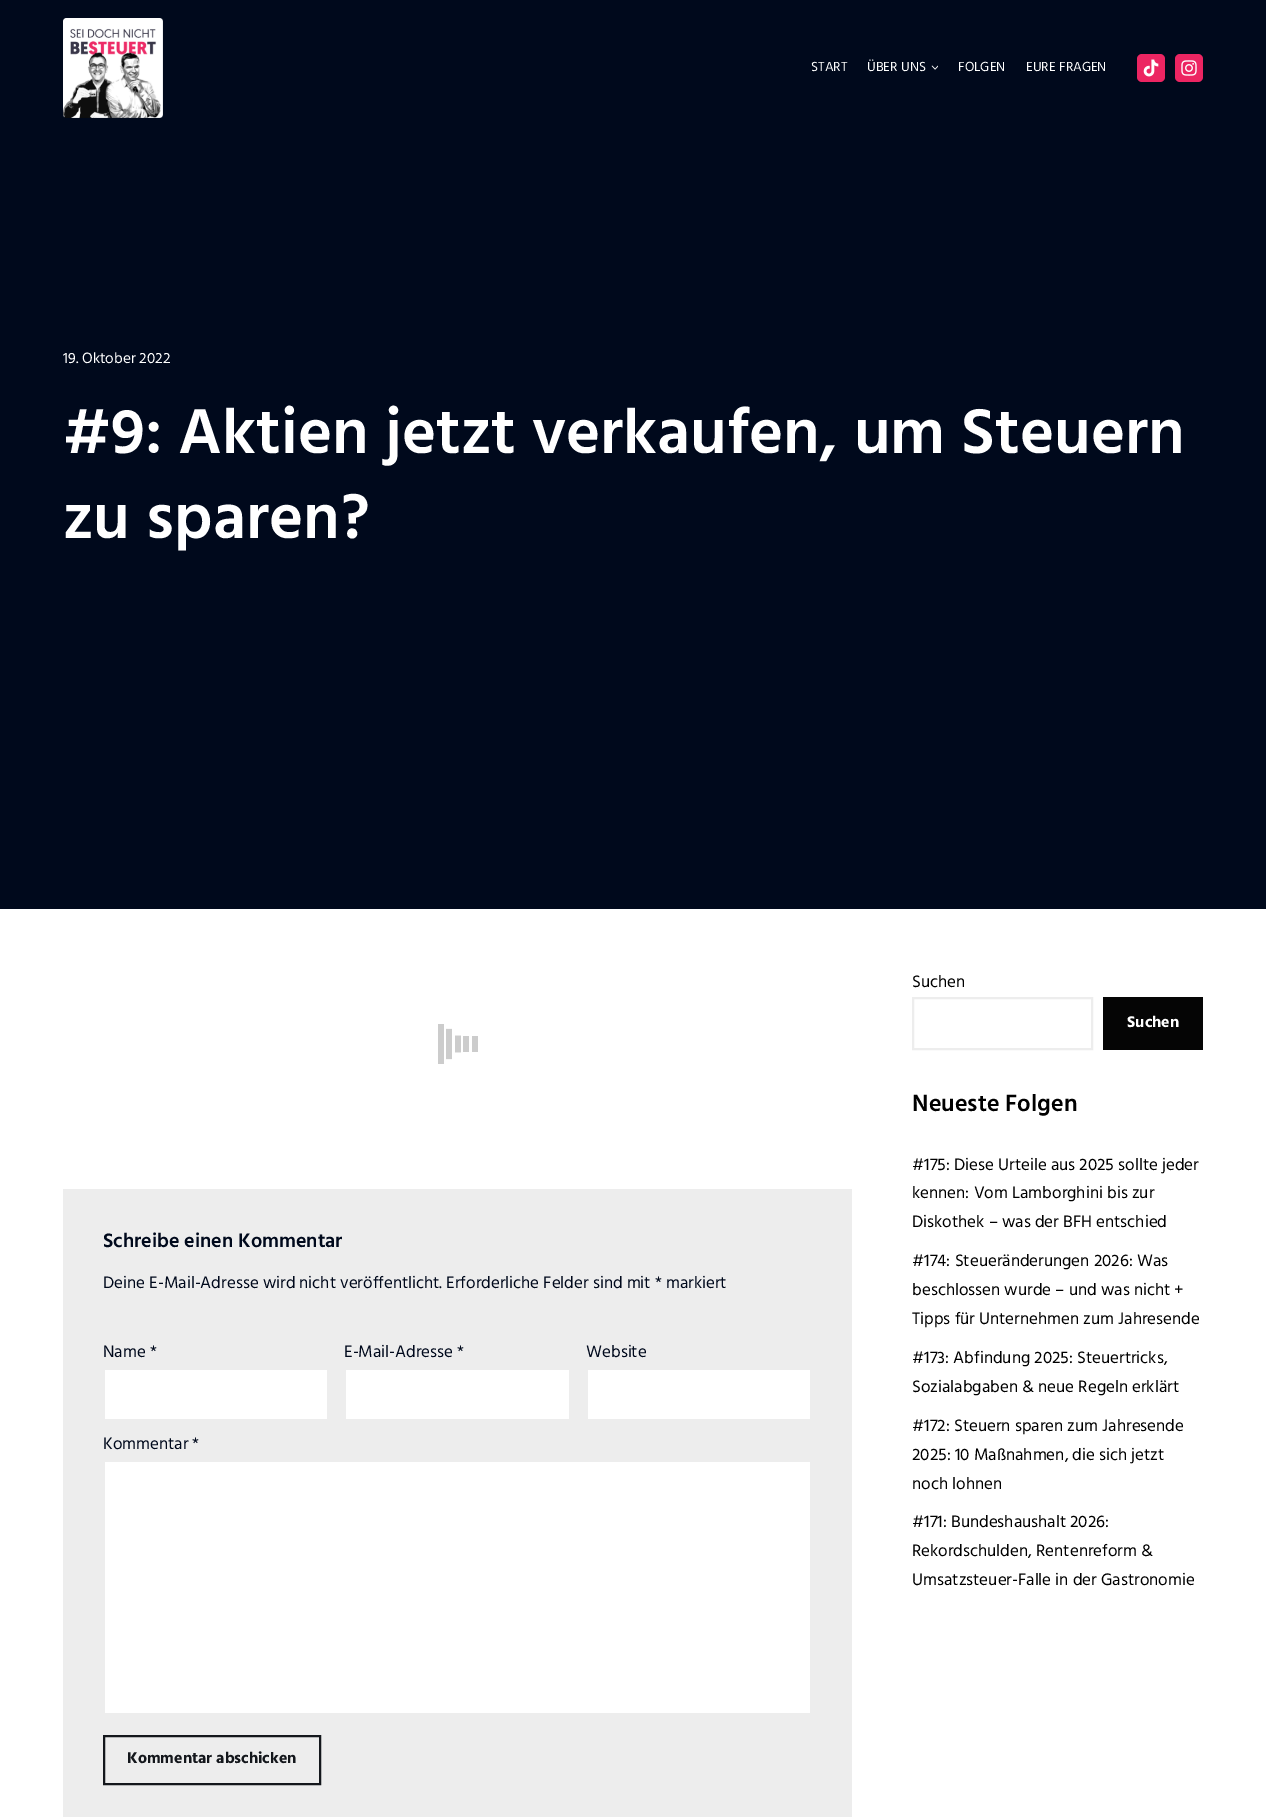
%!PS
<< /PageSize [1266 1817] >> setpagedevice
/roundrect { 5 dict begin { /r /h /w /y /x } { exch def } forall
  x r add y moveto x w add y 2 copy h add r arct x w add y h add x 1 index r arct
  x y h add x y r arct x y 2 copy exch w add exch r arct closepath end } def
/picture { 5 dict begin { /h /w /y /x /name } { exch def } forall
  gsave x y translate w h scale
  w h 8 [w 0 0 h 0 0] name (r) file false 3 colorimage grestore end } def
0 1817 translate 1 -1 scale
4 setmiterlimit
1 setgray
0 0 1266 1817 rectfill
0 0.035 0.11 setrgbcolor
0 0 1266 909 rectfill
(img1.rgb) 63 18 100 100 picture
/Hind-Regular [13.5 0 0 -13.5 0 0] selectfont
1 setgray
811 71 moveto (START) show
867 71 moveto (ÜBER UNS) show
(img2.rgb) 931 65 7 5 picture
958 71 moveto (FOLGEN) show
1026 71 moveto (EURE FRAGEN) show
0.925 0.145 0.384 setrgbcolor
1137 54 28 28 5 roundrect fill
(img3.rgb) 1143 59 16 18 picture
1175 54 28 28 5 roundrect fill
(img4.rgb) 1181 60 16 16 picture
/Hind-Regular [15.25 0 0 -15.25 0 0] selectfont
1 setgray
63 363 moveto (19. Oktober 2022) show
/Hind-SemiBold [65 0 0 -65 0 0] selectfont
63 453 moveto (#9: Aktien jetzt verkaufen, um Steuern) show
63 538 moveto (zu sparen?) show
(img5.rgb) 438 1024 40 40 picture
0.929 setgray
63 1189 789 628 rectfill
/Hind-SemiBold [20 0 0 -20 0 0] selectfont
0 0.035 0.11 setrgbcolor
103 1247 moveto (Schreibe einen Kommentar) show
/Hind-Regular [17 0 0 -17 0 0] selectfont
103 1288 moveto (Deine E-Mail-Adresse wird nicht veröffentlicht. Erforderliche Felder sind mit * markiert) show
103 1357 moveto (Name *) show
1 setgray
105 1370 222 49 rectfill
0 0.035 0.11 setrgbcolor
344 1357 moveto (E-Mail-Adresse *) show
1 setgray
346 1370 223 49 rectfill
0 0.035 0.11 setrgbcolor
586 1357 moveto (Website) show
1 setgray
588 1370 222 49 rectfill
0 0.035 0.11 setrgbcolor
103 1449 moveto (Kommentar *) show
1 setgray
105 1462 705 251 rectfill
0.078 0.09 0.11 setrgbcolor
2 setlinewidth
104 1736 216 48 rectstroke
/Hind-Bold [16 0 0 -16 0 0] selectfont
127 1763 moveto (Kommentar abschicken) show
/Hind-Regular [17 0 0 -17 0 0] selectfont
0 setgray
912 987 moveto (Suchen) show
0.929 setgray
913 998 179 51 rectstroke
0.02 setgray
1103 997 100 53 rectfill
/Hind-Bold [16 0 0 -16 0 0] selectfont
1 setgray
1127 1027 moveto (Suchen) show
/Hind-SemiBold [24 0 0 -24 0 0] selectfont
0 setgray
912 1111 moveto (Neueste Folgen) show
/Hind-Regular [17 0 0 -17 0 0] selectfont
912 1170 moveto (#175: Diese Urteile aus 2025 sollte jeder) show
912 1198 moveto (kennen: Vom Lamborghini bis zur) show
912 1227 moveto (Diskothek – was der BFH entschied) show
912 1266 moveto (#174: Steueränderungen 2026: Was) show
912 1295 moveto (beschlossen wurde – und was nicht +) show
912 1324 moveto (Tipps für Unternehmen zum Jahresende) show
912 1363 moveto (#173: Abfindung 2025: Steuertricks,) show
912 1392 moveto (Sozialabgaben & neue Regeln erklärt) show
912 1431 moveto (#172: Steuern sparen zum Jahresende) show
912 1460 moveto (2025: 10 Maßnahmen, die sich jetzt) show
912 1489 moveto (noch lohnen) show
912 1527 moveto (#171: Bundeshaushalt 2026:) show
912 1556 moveto (Rekordschulden, Rentenreform &) show
912 1585 moveto (Umsatzsteuer-Falle in der Gastronomie) show
showpage
